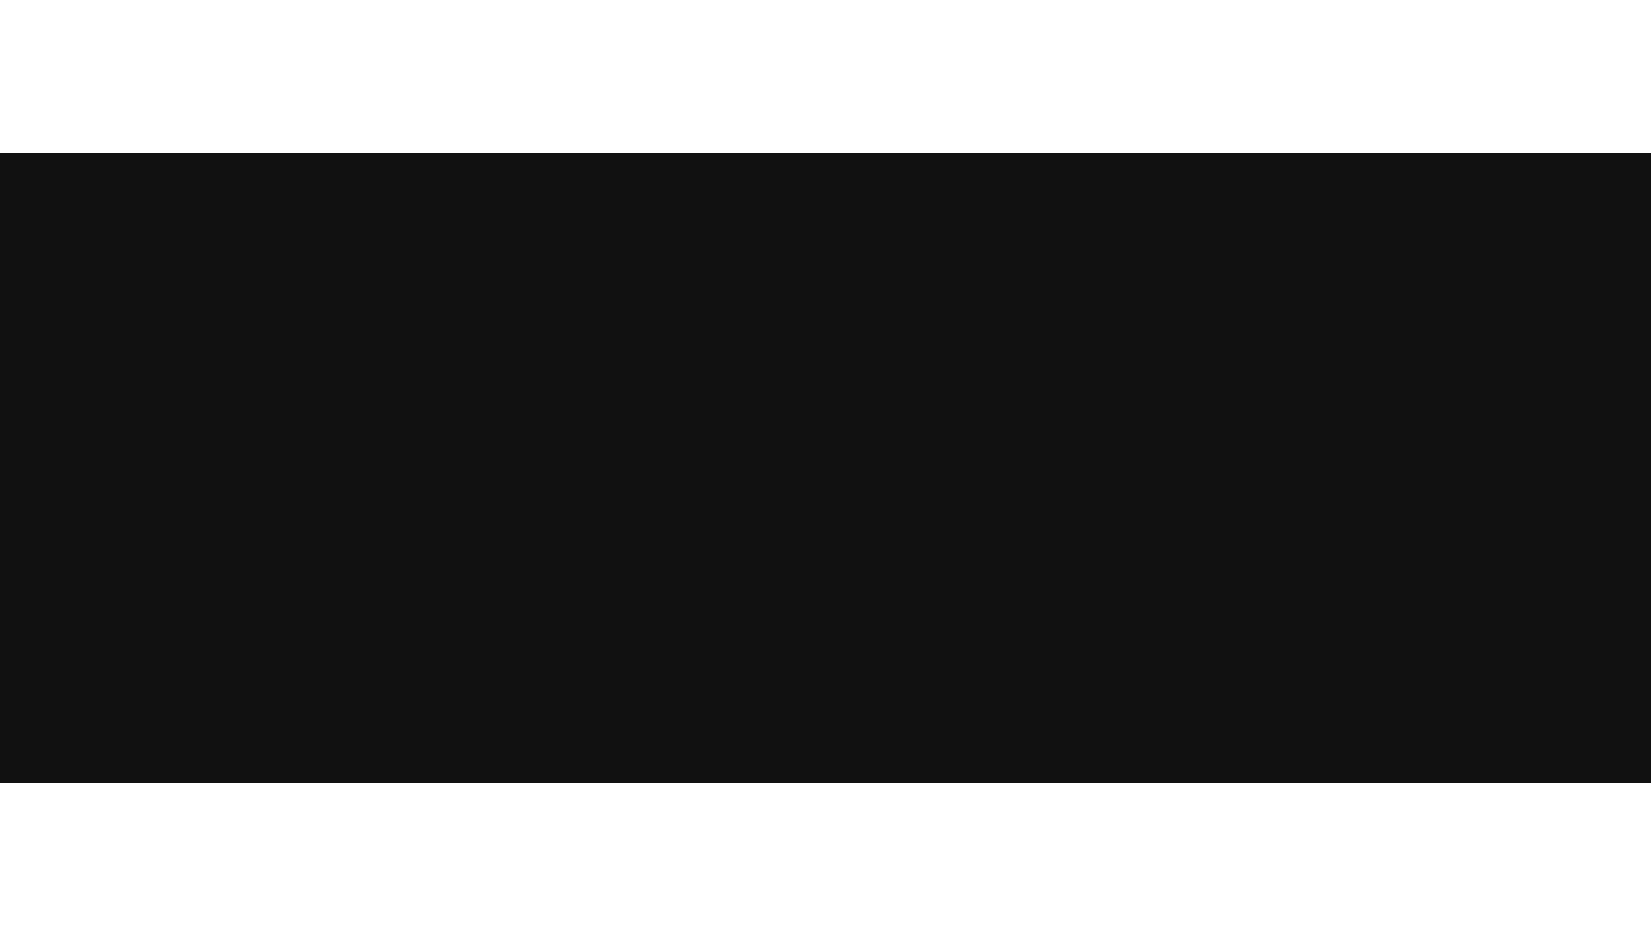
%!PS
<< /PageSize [1651 936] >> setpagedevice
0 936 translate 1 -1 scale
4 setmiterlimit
1 setgray
0 0 1651 936 rectfill
0.067 setgray
0 153 1651 630 rectfill
showpage
